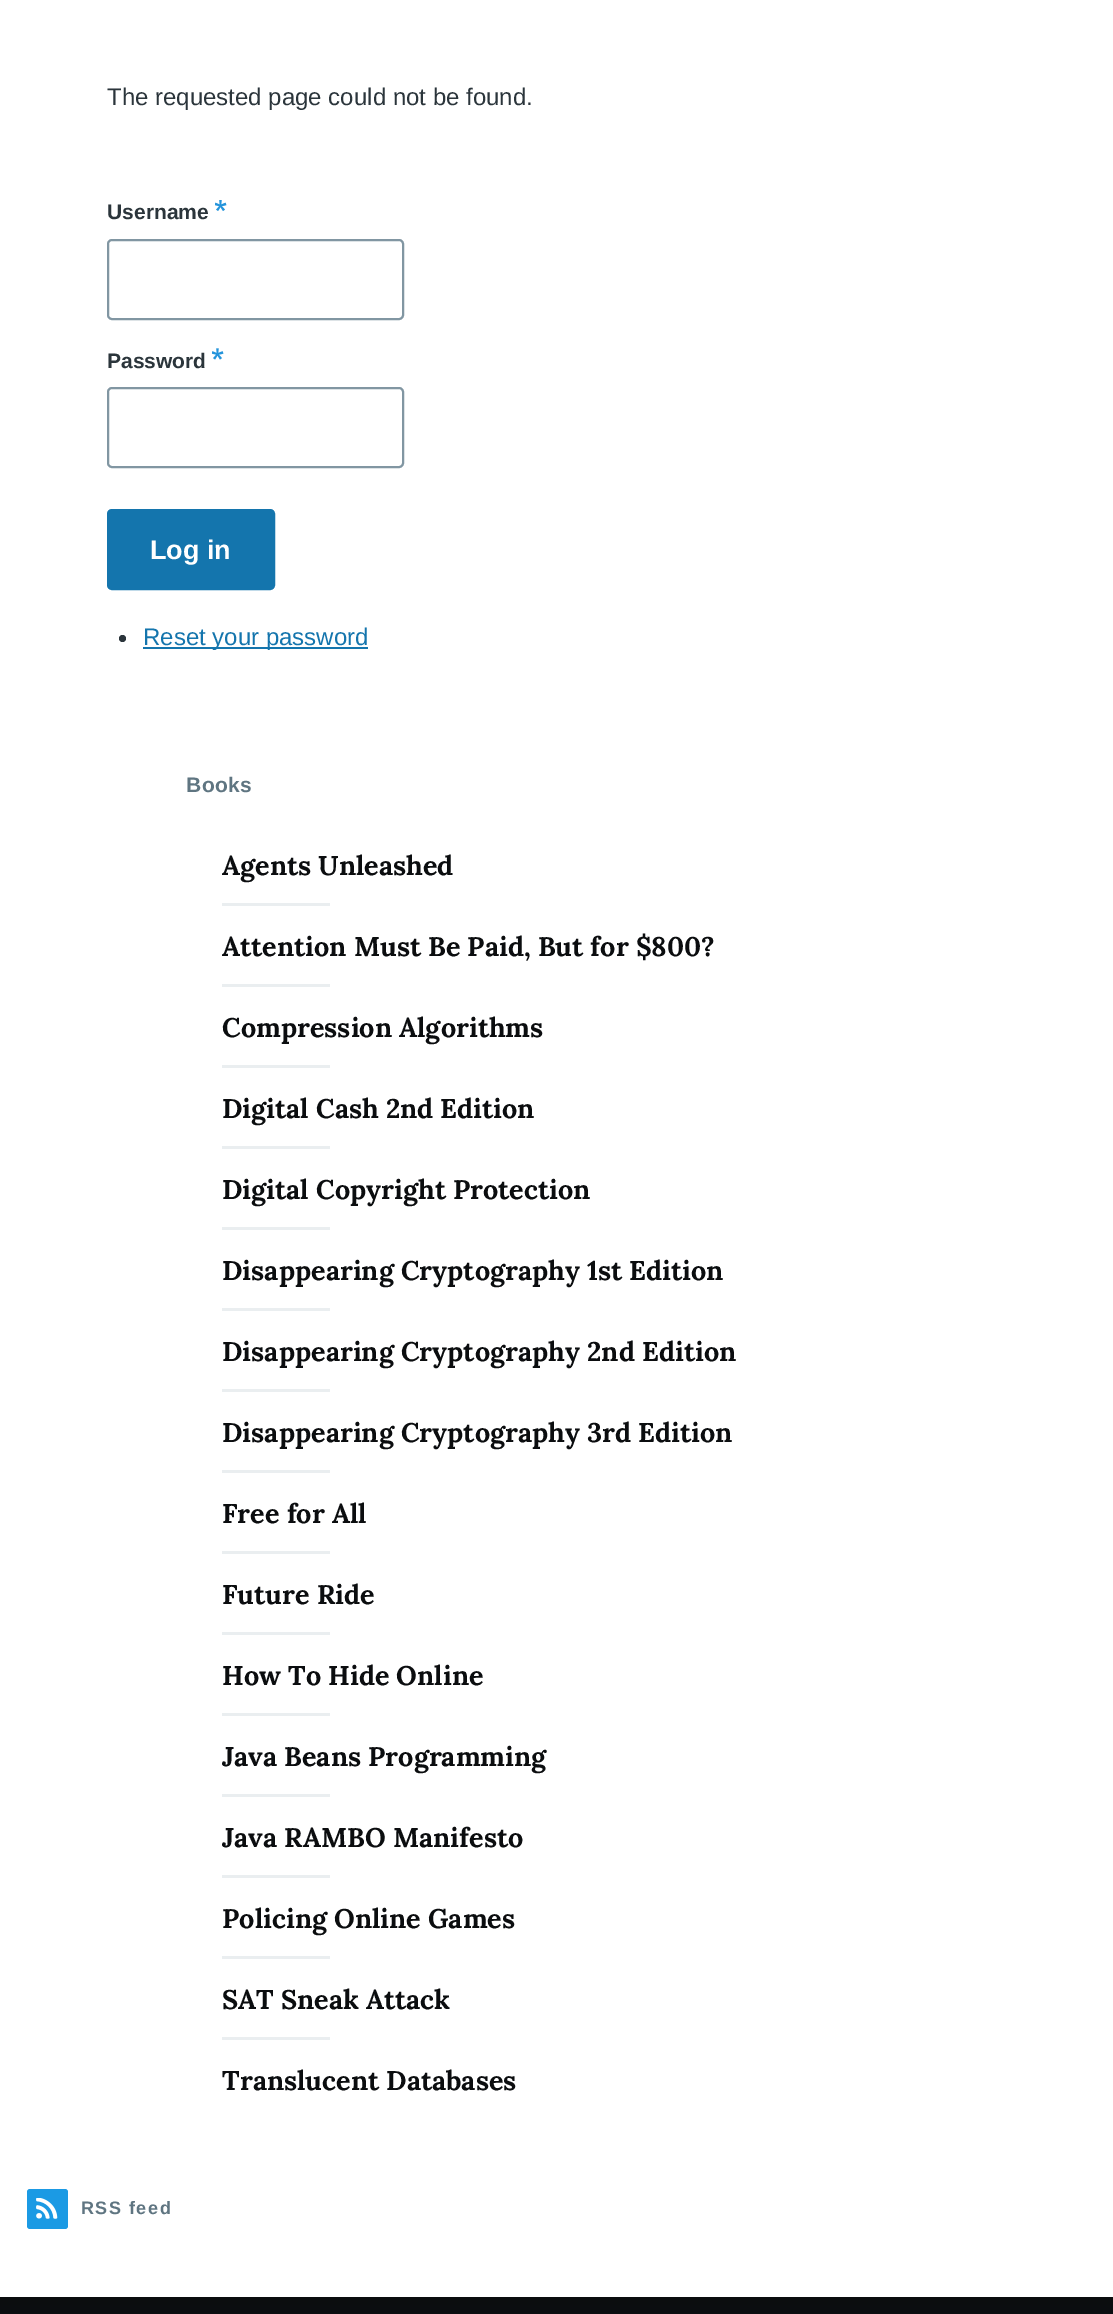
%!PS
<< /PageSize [1113 2314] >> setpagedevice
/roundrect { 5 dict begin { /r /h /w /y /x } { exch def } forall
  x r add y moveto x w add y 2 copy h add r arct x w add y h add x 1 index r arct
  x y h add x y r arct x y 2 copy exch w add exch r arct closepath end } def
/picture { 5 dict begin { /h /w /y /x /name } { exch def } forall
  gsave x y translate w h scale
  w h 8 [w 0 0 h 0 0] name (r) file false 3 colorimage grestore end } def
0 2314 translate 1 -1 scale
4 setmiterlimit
1 setgray
0 0 1113 2314 rectfill
/LiberationSans-Regular [24 0 0 -24 0 0] selectfont
0.169 0.208 0.231 setrgbcolor
107 105 moveto (The requested page could not be found.) show
/LiberationSans-Bold [21 0 0 -21 0 0] selectfont
107 219 moveto (Username) show
(img1.rgb) 215 200 12 11 picture
0.506 0.588 0.635 setrgbcolor
2 setlinewidth
108 240 295 79 4 roundrect stroke
0.169 0.208 0.231 setrgbcolor
107 368 moveto (Password) show
(img2.rgb) 212 348 12 12 picture
0.506 0.588 0.635 setrgbcolor
108 388 295 79 4 roundrect stroke
0.078 0.459 0.678 setrgbcolor
108.5 510.5 165 78 3.5 roundrect gsave fill grestore
3 setlinewidth
stroke
/LiberationSans-Bold [27 0 0 -27 0 0] selectfont
1 setgray
150 559 moveto (Log in) show
0.169 0.208 0.231 setrgbcolor
newpath 122.5 638.5 3.5 0 360 arc closepath fill
0.078 0.459 0.678 setrgbcolor
143 647 225 2 rectfill
/LiberationSans-Regular [24 0 0 -24 0 0] selectfont
143 645 moveto (Reset your password) show
/LiberationSans-Bold [21 0 0 -21 0 0] selectfont
0.373 0.459 0.506 setrgbcolor
186 792 moveto 0.5 0 (Books) ashow
/Lora-Bold [27 0 0 -27 0 0] selectfont
0.043 0.051 0.059 setrgbcolor
222 875 moveto (Agents Unleashed) show
0.918 0.933 0.941 setrgbcolor
222 903 108 3 rectfill
0.043 0.051 0.059 setrgbcolor
222 956 moveto (Attention Must Be Paid, But for $800?) show
0.918 0.933 0.941 setrgbcolor
222 984 108 3 rectfill
0.043 0.051 0.059 setrgbcolor
222 1037 moveto (Compression Algorithms) show
0.918 0.933 0.941 setrgbcolor
222 1065 108 3 rectfill
0.043 0.051 0.059 setrgbcolor
222 1118 moveto (Digital Cash 2nd Edition) show
0.918 0.933 0.941 setrgbcolor
222 1146 108 3 rectfill
0.043 0.051 0.059 setrgbcolor
222 1199 moveto (Digital Copyright Protection) show
0.918 0.933 0.941 setrgbcolor
222 1227 108 3 rectfill
0.043 0.051 0.059 setrgbcolor
222 1280 moveto (Disappearing Cryptography 1st Edition) show
0.918 0.933 0.941 setrgbcolor
222 1308 108 3 rectfill
0.043 0.051 0.059 setrgbcolor
222 1361 moveto (Disappearing Cryptography 2nd Edition) show
0.918 0.933 0.941 setrgbcolor
222 1389 108 3 rectfill
0.043 0.051 0.059 setrgbcolor
222 1442 moveto (Disappearing Cryptography 3rd Edition) show
0.918 0.933 0.941 setrgbcolor
222 1470 108 3 rectfill
0.043 0.051 0.059 setrgbcolor
222 1523 moveto (Free for All) show
0.918 0.933 0.941 setrgbcolor
222 1551 108 3 rectfill
0.043 0.051 0.059 setrgbcolor
222 1604 moveto (Future Ride) show
0.918 0.933 0.941 setrgbcolor
222 1632 108 3 rectfill
0.043 0.051 0.059 setrgbcolor
222 1685 moveto (How To Hide Online) show
0.918 0.933 0.941 setrgbcolor
222 1713 108 3 rectfill
0.043 0.051 0.059 setrgbcolor
222 1766 moveto (Java Beans Programming) show
0.918 0.933 0.941 setrgbcolor
222 1794 108 3 rectfill
0.043 0.051 0.059 setrgbcolor
222 1847 moveto (Java RAMBO Manifesto) show
0.918 0.933 0.941 setrgbcolor
222 1875 108 3 rectfill
0.043 0.051 0.059 setrgbcolor
222 1928 moveto (Policing Online Games) show
0.918 0.933 0.941 setrgbcolor
222 1956 108 3 rectfill
0.043 0.051 0.059 setrgbcolor
222 2009 moveto (SAT Sneak Attack) show
0.918 0.933 0.941 setrgbcolor
222 2037 108 3 rectfill
0.043 0.051 0.059 setrgbcolor
222 2090 moveto (Translucent Databases) show
0.106 0.604 0.894 setrgbcolor
27 2189 41 40 3 roundrect fill
(img3.rgb) 36 2198 22 21 picture
/LiberationSans-Bold [18 0 0 -18 0 0] selectfont
0.373 0.459 0.506 setrgbcolor
81 2214 moveto 1.5 0 (RSS feed) ashow
gsave newpath 0 2297 moveto 1113 2297 lineto 1113 2314 lineto 0 2314 lineto closepath clip newpath
<< /ShadingType 2 /ColorSpace /DeviceRGB /Coords [557 2297 557 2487] /Extend [true true] /Function << /FunctionType 2 /Domain [0 1] /C0 [0.043 0.051 0.059] /C1 [0.094 0.114 0.125] /N 1 >> >> shfill grestore
showpage
